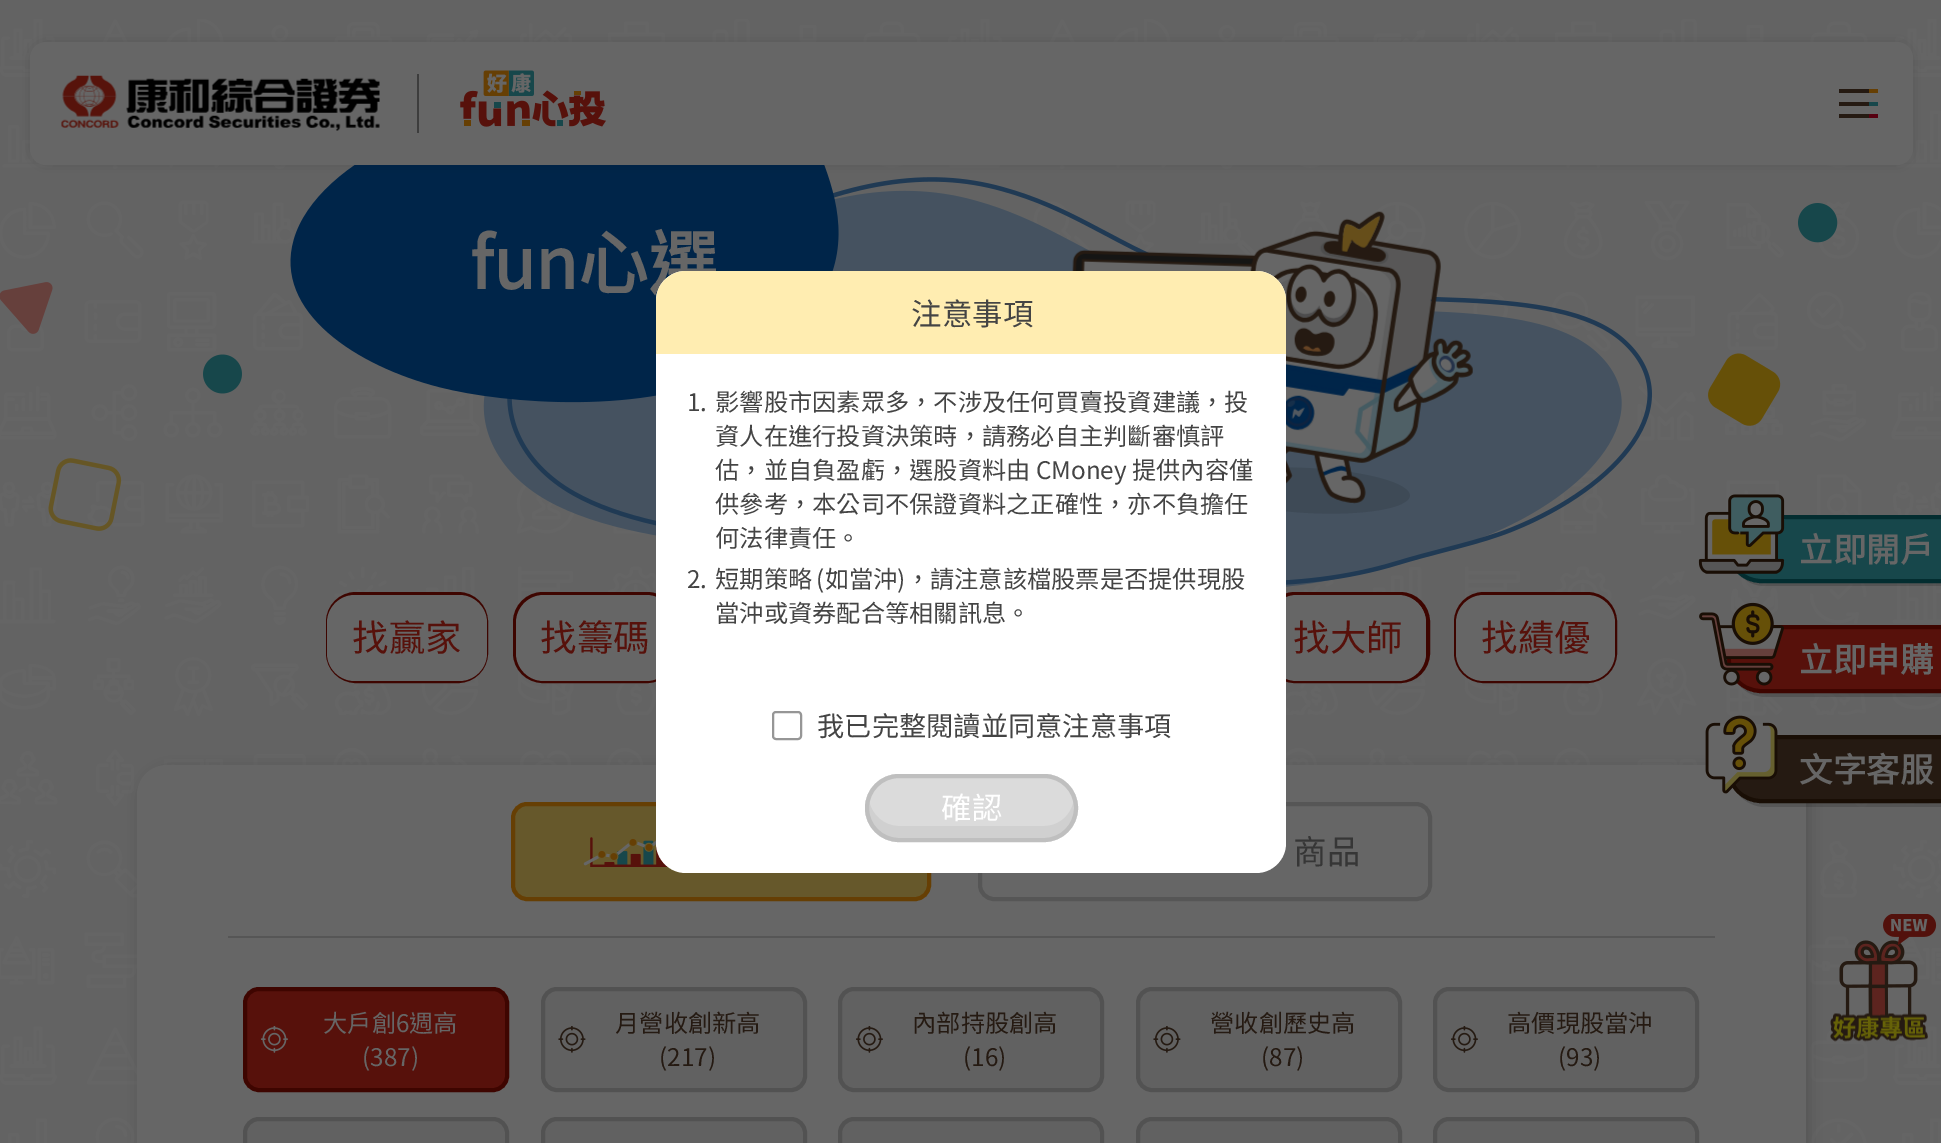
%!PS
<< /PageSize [1941 1143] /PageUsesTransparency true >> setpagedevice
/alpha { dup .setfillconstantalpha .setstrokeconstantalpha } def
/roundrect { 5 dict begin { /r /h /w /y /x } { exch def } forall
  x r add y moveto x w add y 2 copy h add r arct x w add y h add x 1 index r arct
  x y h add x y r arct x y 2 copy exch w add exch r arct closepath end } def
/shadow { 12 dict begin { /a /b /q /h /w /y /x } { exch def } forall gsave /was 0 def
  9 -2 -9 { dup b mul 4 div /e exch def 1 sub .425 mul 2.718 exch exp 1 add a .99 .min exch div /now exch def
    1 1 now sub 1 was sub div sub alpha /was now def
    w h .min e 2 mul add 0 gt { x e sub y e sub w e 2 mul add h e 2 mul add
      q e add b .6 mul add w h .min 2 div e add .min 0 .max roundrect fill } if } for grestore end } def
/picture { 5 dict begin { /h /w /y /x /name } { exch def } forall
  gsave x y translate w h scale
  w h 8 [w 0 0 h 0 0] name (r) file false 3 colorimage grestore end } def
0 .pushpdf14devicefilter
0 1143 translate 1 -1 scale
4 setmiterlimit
0.388 setgray
0 0 1941 1143 rectfill
(img1.rgb) 0 19 1941 1124 picture
(img4.rgb) 290 165 1362 422 picture
0 setgray
30 42 1883 123 16 7 0.1 shadow
0.4 setgray
30 42 1883 123 16 roundrect fill
0.239 setgray
417 74 2 59 rectfill
(img2.rgb) 61 75 319 56 picture
(img3.rgb) 460 70 146 57 picture
0.145 0.102 0.071 setrgbcolor
1839 89 30 4 rectfill
0.4 0.247 0.016 setrgbcolor
1869 89 9 4 rectfill
0.145 0.102 0.071 setrgbcolor
1839 102 30 4 rectfill
0.09 0.278 0.294 setrgbcolor
1869 102 9 4 rectfill
0.145 0.102 0.071 setrgbcolor
1839 114 30 4 rectfill
0.337 0 0.063 setrgbcolor
1869 114 9 4 rectfill
(img5.rgb) 0 282 242 249 picture
0.1 alpha
0 setgray
newpath 1310 468 moveto 1366 471 1411 483 1410 496 curveto 1409 508 1364 516 1308 513 curveto 1252 510 1208 498 1209 485 curveto 1209 473 1255 465 1310 468 curveto closepath fill
1 alpha
(img6.rgb) 1072 211 401 293 picture
(img7.rgb) 1708 203 130 223 picture
/NotoSansTC-Bold [70 0 0 -70 0 0] selectfont
0.4 setgray
470 289 moveto (fun心選) show
0.243 0.02 0 setrgbcolor
4 setlinewidth
328 594 158 87 28 roundrect stroke
0.4 setgray
327 595 160 86 28 roundrect fill
/NotoSansTC-Regular [36.5 0 0 -36.5 0 0] selectfont
0.341 0.067 0.043 setrgbcolor
352 651 moveto (找贏家) show
0.243 0.02 0 setrgbcolor
515 594 160 87 28 roundrect stroke
0.4 setgray
516 595 158 86 28 roundrect fill
0.341 0.067 0.043 setrgbcolor
540 651 moveto (找籌碼) show
0.243 0.02 0 setrgbcolor
1267 594 161 87 28 roundrect stroke
0.4 setgray
1269 595 157 86 28 roundrect fill
0.341 0.067 0.043 setrgbcolor
1293 651 moveto (找大師) show
0.243 0.02 0 setrgbcolor
1456 594 159 87 28 roundrect stroke
0.4 setgray
1456 595 159 86 28 roundrect fill
0.341 0.067 0.043 setrgbcolor
1481 651 moveto (找績優) show
0 setgray
140 768 1670 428 30 7.5 0.15 shadow
0.4 setgray
137 765 1669 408 30 roundrect fill
0.337 setgray
228 936 1487 2 rectfill
0.4 0.345 0.169 setrgbcolor
513 804 416 95 14 roundrect gsave fill grestore
0.4 0.247 0.016 setrgbcolor
stroke
(img8.rgb) 583 837 85 30 picture
0.337 setgray
980 804 450 95 14 roundrect stroke
/NotoSansTC-Regular [33.5 0 0 -33.5 0 0] selectfont
0.212 setgray
1293 864 moveto (商品) show
0.341 0.067 0.043 setrgbcolor
245 989 262 101 14 roundrect gsave fill grestore
0.243 0.02 0 setrgbcolor
stroke
(img9.rgb) 261 1026 27 27 picture
/NotoSansTC-Regular [24.25 0 0 -24.25 0 0] selectfont
0.4 setgray
323 1032 moveto (大戶創6週高) show
362 1066 moveto (\(387\)) show
0.38 setgray
541 987 266 105 16 roundrect fill
0.4 alpha
0.235 setgray
543 989 262 101 14 roundrect stroke
1 alpha
(img10.rgb) 558 1026 28 27 picture
0.145 0.102 0.071 setrgbcolor
615 1032 moveto (月營收創新高) show
659 1066 moveto (\(217\)) show
0.38 setgray
838 987 266 105 16 roundrect fill
0.4 alpha
0.235 setgray
840 989 262 101 14 roundrect stroke
1 alpha
(img11.rgb) 856 1026 27 27 picture
0.145 0.102 0.071 setrgbcolor
912 1032 moveto (內部持股創高) show
963 1066 moveto (\(16\)) show
0.38 setgray
1136 987 266 105 16 roundrect fill
0.4 alpha
0.235 setgray
1138 989 262 101 14 roundrect stroke
1 alpha
(img10.rgb) 1153 1026 28 27 picture
0.145 0.102 0.071 setrgbcolor
1210 1032 moveto (營收創歷史高) show
1261 1066 moveto (\(87\)) show
0.38 setgray
1433 987 266 105 16 roundrect fill
0.4 alpha
0.235 setgray
1435 989 262 101 14 roundrect stroke
1 alpha
(img11.rgb) 1451 1026 27 27 picture
0.145 0.102 0.071 setrgbcolor
1507 1032 moveto (高價現股當沖) show
1558 1066 moveto (\(93\)) show
0.38 setgray
243 1117 266 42 16 roundrect fill
0.4 alpha
0.235 setgray
245 1119 262 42 14 roundrect stroke
1 alpha
0.38 setgray
541 1117 266 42 16 roundrect fill
0.4 alpha
0.235 setgray
543 1119 262 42 14 roundrect stroke
1 alpha
0.38 setgray
838 1117 266 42 16 roundrect fill
0.4 alpha
0.235 setgray
840 1119 262 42 14 roundrect stroke
1 alpha
0.38 setgray
1136 1117 266 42 16 roundrect fill
0.4 alpha
0.235 setgray
1138 1119 262 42 14 roundrect stroke
1 alpha
0.38 setgray
1433 1117 266 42 16 roundrect fill
0.4 alpha
0.235 setgray
1435 1119 262 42 14 roundrect stroke
0.15 alpha
0 setgray
newpath 1741 576 moveto 1747 582 1755 586 1765 586 curveto 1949 586 lineto 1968 586 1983 571 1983 552 curveto 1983 541 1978 531 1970 525 curveto 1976 531 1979 540 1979 549 curveto 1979 567 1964 583 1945 583 curveto 1761 583 lineto 1754 583 1746 580 1741 576 curveto closepath fill
1 alpha
0.09 0.278 0.294 setrgbcolor
1729 517 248 64 32 roundrect gsave fill grestore
0.012 0.176 0.188 setrgbcolor
stroke
(img12.rgb) 1698 494 87 80 picture
/NotoSansTC-Bold [33.5 0 0 -33.5 0 0] selectfont
0.4 setgray
1799 562 moveto (立即開戶) show
0.15 alpha
0 setgray
newpath 1739 685 moveto 1745 692 1755 697 1766 697 curveto 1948 697 lineto 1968 697 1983 682 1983 662 curveto 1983 652 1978 642 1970 636 curveto 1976 642 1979 650 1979 659 curveto 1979 678 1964 693 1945 693 curveto 1761 693 lineto 1753 693 1745 690 1739 685 curveto closepath fill
1 alpha
0.341 0.067 0.043 setrgbcolor
1729 627 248 64 32 roundrect gsave fill grestore
0.243 0.02 0 setrgbcolor
stroke
(img13.rgb) 1699 602 85 84 picture
0.4 setgray
1799 672 moveto (立即申購) show
0.15 alpha
0 setgray
newpath 1739 795 moveto 1745 802 1755 807 1765 807 curveto 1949 807 lineto 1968 807 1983 792 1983 773 curveto 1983 763 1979 754 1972 748 curveto 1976 753 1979 761 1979 769 curveto 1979 788 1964 803 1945 803 curveto 1761 803 lineto 1753 803 1745 800 1739 795 curveto closepath fill
1 alpha
0.145 0.102 0.071 setrgbcolor
1729 737 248 64 32 roundrect gsave fill grestore
0.098 0.055 0.02 setrgbcolor
stroke
(img14.rgb) 1705 715 73 79 picture
0.4 setgray
1799 782 moveto (文字客服) show
(img16.rgb) 1839 940 79 77 picture
(img15.rgb) 1883 914 54 31 picture
(img17.rgb) 1830 1013 98 29 picture
1 setgray
656 271 630 602 30 roundrect fill
1 0.929 0.694 setrgbcolor
newpath 686 271 moveto 1256 271 lineto 1272.5 271 1286 284.5 1286 301 curveto 1286 354 lineto 656 354 lineto 656 301 lineto 656 284.5 669.5 271 686 271 curveto closepath fill
/NotoSansTC-Regular [30.5 0 0 -30.5 0 0] selectfont
0.267 setgray
911 325 moveto (注意事項) show
/NotoSansTC-Regular [24.25 0 0 -24.25 0 0] selectfont
687 411 moveto (1.) show
715 411 moveto (影響股市因素眾多，不涉及任何買賣投資建議，投) show
715 445 moveto (資人在進行投資決策時，請務必自主判斷審慎評) show
715 479 moveto (估，並自負盈虧，選股資料由 CMoney 提供內容僅) show
715 513 moveto (供參考，本公司不保證資料之正確性，亦不負擔任) show
715 547 moveto (何法律責任。) show
687 588 moveto (2.) show
715 588 moveto -1 0 32 (短期策略 \(如當沖\)，請注意該檔股票是否提供現股) widthshow
715 622 moveto (當沖或資券配合等相關訊息。) show
0.588 setgray
2 setlinewidth
773 712 28 27 3 roundrect stroke
/NotoSansTC-Regular [27.25 0 0 -27.25 0 0] selectfont
0.267 setgray
817 736 moveto (我已完整閱讀並同意注意事項) show
0.859 setgray
865 774 213 68 34 roundrect fill
0.816 setgray
newpath 869 801 moveto 868 808 lineto 868 824 882 838 898 838 curveto 1044 838 lineto 1061 838 1075 824 1075 808 curveto 1075 805 1075 802 1074 799 curveto 1072 814 1060 826 1044 826 curveto 899 826 lineto 884 826 872 815 869 801 curveto closepath fill
0.749 setgray
4 setlinewidth
867 776 209 64 32 roundrect stroke
/NotoSansTC-Regular [30.5 0 0 -30.5 0 0] selectfont
1 setgray
941 819 moveto (確認) show
.poppdf14devicefilter showpage
